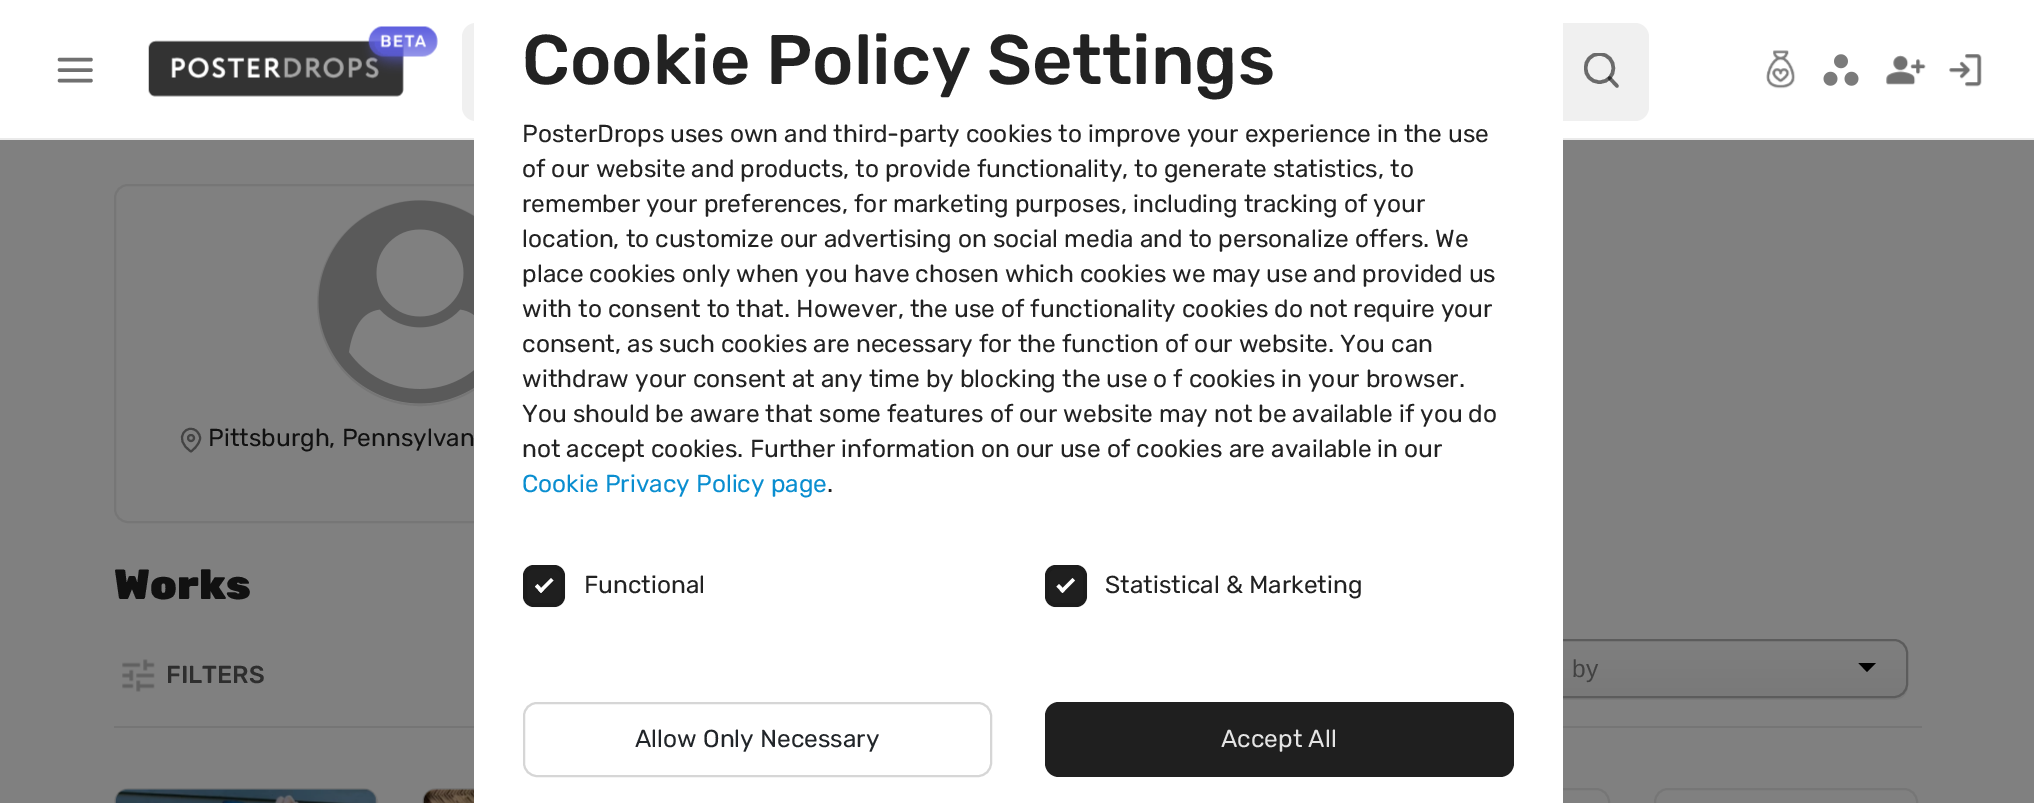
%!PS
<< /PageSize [2034 803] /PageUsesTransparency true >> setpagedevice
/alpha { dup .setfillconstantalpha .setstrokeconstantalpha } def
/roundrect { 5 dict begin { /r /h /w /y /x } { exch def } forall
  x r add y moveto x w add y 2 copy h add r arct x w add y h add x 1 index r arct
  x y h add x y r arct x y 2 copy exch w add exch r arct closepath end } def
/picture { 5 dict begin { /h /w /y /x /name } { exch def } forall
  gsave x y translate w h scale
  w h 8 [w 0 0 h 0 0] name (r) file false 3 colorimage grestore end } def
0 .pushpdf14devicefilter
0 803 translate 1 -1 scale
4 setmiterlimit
0.502 setgray
0 0 2034 803 rectfill
1 setgray
0 0 2034 138 rectfill
0.918 setgray
0 138 2034 2 rectfill
0.439 setgray
3.5 setlinewidth
1 setlinecap
1 setlinejoin
newpath 59.5 70 moveto 91 70 lineto 59.5 59.5 moveto 91 59.5 lineto 59.5 80.5 moveto 91 80.5 lineto stroke
(img1.rgb) 148 26 290 71 picture
0.941 setgray
462 23 1187 98 14 roundrect fill
gsave
1584 53 35 35 rectclip
0.416 setgray
newpath 1599.5 82 moveto 1618 82 1618 54.5 1599.5 54 curveto 1581 54 1581 82 1599.5 82 curveto closepath stroke
grestore
0.56 alpha
0 setgray
newpath 1617 86 moveto 1609.5 78 lineto stroke
1 alpha
(img2.rgb) 1766 50 30 39 picture
(img3.rgb) 1823 54 36 32 picture
(img4.rgb) 1886 55 40 30 picture
(img5.rgb) 1949 54 33 33 picture
0.463 setgray
2 setlinewidth
0 setlinecap
0 setlinejoin
115 185 610 337 13 roundrect stroke
newpath 420 303 102 0 360 arc closepath stroke
0.459 setgray
114 726 1808 2 rectfill
0.475 setgray
newpath 1470 684 moveto 1470 686 lineto 1470 694 1476 700 1484 700 curveto 1894 700 lineto 1902 700 1908 694 1908 686 curveto 1908 655 lineto 1907 651 lineto 1908 684 lineto 1908 692 1901 698 1894 698 curveto 1484 698 lineto 1476 698 1470 692 1470 684 curveto closepath fill
gsave
1470 639 438 59 14 roundrect clip newpath
gsave newpath 1563 641 moveto 1908 641 lineto 1908 697 lineto 1563 697 lineto closepath clip newpath
<< /ShadingType 2 /ColorSpace /DeviceRGB /Coords [1689 641 1689 697] /Extend [true true] /Function << /FunctionType 2 /Domain [0 1] /C0 [0.498 0.498 0.498] /C1 [0.475 0.475 0.475] /N 1 >> >> shfill grestore
grestore
0.361 setgray
1471 640 436 57 13 roundrect stroke
0.463 setgray
423 789 262 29 13 roundrect stroke
1347 789 262 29 13 roundrect stroke
1 setgray
474 23 1089 780 rectfill
/Rubik-Medium [70 0 0 -70 0 0] selectfont
0.133 setgray
522 84 moveto (Cookie Policy Settings) show
/Rubik-Regular [24.5 0 0 -24.5 0 0] selectfont
522 142 moveto (PosterDrops uses own and third-party cookies to improve your experience in the use) show
522 177 moveto (of our website and products, to provide functionality, to generate statistics, to) show
522 212 moveto (remember your preferences, for marketing purposes, including tracking of your) show
522 247 moveto (location, to customize our advertising on social media and to personalize offers. We) show
522 282 moveto (place cookies only when you have chosen which cookies we may use and provided us) show
522 317 moveto (with to consent to that. However, the use of functionality cookies do not require your) show
522 352 moveto (consent, as such cookies are necessary for the function of our website. You can) show
522 387 moveto (withdraw your consent at any time by blocking the use o f cookies in your browser.) show
522 422 moveto (You should be aware that some features of our website may not be available if you do) show
522 457 moveto (not accept cookies. Further information on our use of cookies are available in our) show
0.039 0.557 0.816 setrgbcolor
522 492 moveto (Cookie Privacy Policy page) show
0.133 setgray
827 492 moveto (.) show
0.122 setgray
523 565 42 42 11 roundrect fill
0.1 alpha
0 setgray
4 setlinewidth
525 567 38 38 9 roundrect stroke
1 alpha
1 setgray
newpath 551 578 moveto 553.5 580.5 lineto 541 593 lineto 538.5 590.5 lineto closepath fill
newpath 537.5 584 moveto 543.5 590.5 lineto 541 593 lineto 535 586.5 lineto closepath fill
0.133 setgray
584 593 moveto (Functional) show
0.122 setgray
1045 565 42 42 11 roundrect fill
0.1 alpha
0 setgray
1047 567 38 38 9 roundrect stroke
1 alpha
1 setgray
newpath 1072.5 578 moveto 1075 580.5 lineto 1062.5 593 lineto 1060 590.5 lineto closepath fill
newpath 1059 584 moveto 1065 590.5 lineto 1062.5 593 lineto 1056.5 586.5 lineto closepath fill
0.133 setgray
1105 593 moveto (Statistical & Marketing) show
0.839 setgray
2 setlinewidth
524 703 467 73 13 roundrect stroke
0.129 0.145 0.161 setrgbcolor
635 747 moveto (Allow Only Necessary) show
0.122 setgray
1045 702 469 75 14 roundrect fill
0.894 setgray
1221 747 moveto (Accept All) show
(img6.rgb) 318 200 156 204 picture
0.263 setgray
1 setlinecap
1 setlinejoin
newpath 200 438 moveto 200 445 191 451.5 191 451.5 curveto 171.5 438.5 188 422 197 431.5 curveto 199 433.5 200 435.5 200 438 curveto closepath stroke
0.067 setgray
208 446 moveto (Pittsburgh, Pennsylvan) show
0.263 setgray
0 setlinecap
0 setlinejoin
newpath 191 438 3 0 360 arc closepath stroke
/Rubik-Black [42 0 0 -42 0 0] selectfont
0.067 setgray
114 599 moveto (Works) show
(img7.rgb) 122 659 33 33 picture
/Rubik-Medium [24.5 0 0 -24.5 0 0] selectfont
0.18 setgray
166 683 moveto (FILTERS) show
/LiberationSans-Regular [24.5 0 0 -24.5 0 0] selectfont
0.255 setgray
1572 677 moveto (by) show
0 setgray
newpath 1858.5 663 moveto 1876 663 lineto 1867 672 lineto closepath fill
0.463 setgray
115 789 262 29 13 roundrect stroke
(img8.rgb) 115 788 262 15 picture
(img9.rgb) 423 788 51 15 picture
1655 789 262 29 13 roundrect stroke
.poppdf14devicefilter showpage
